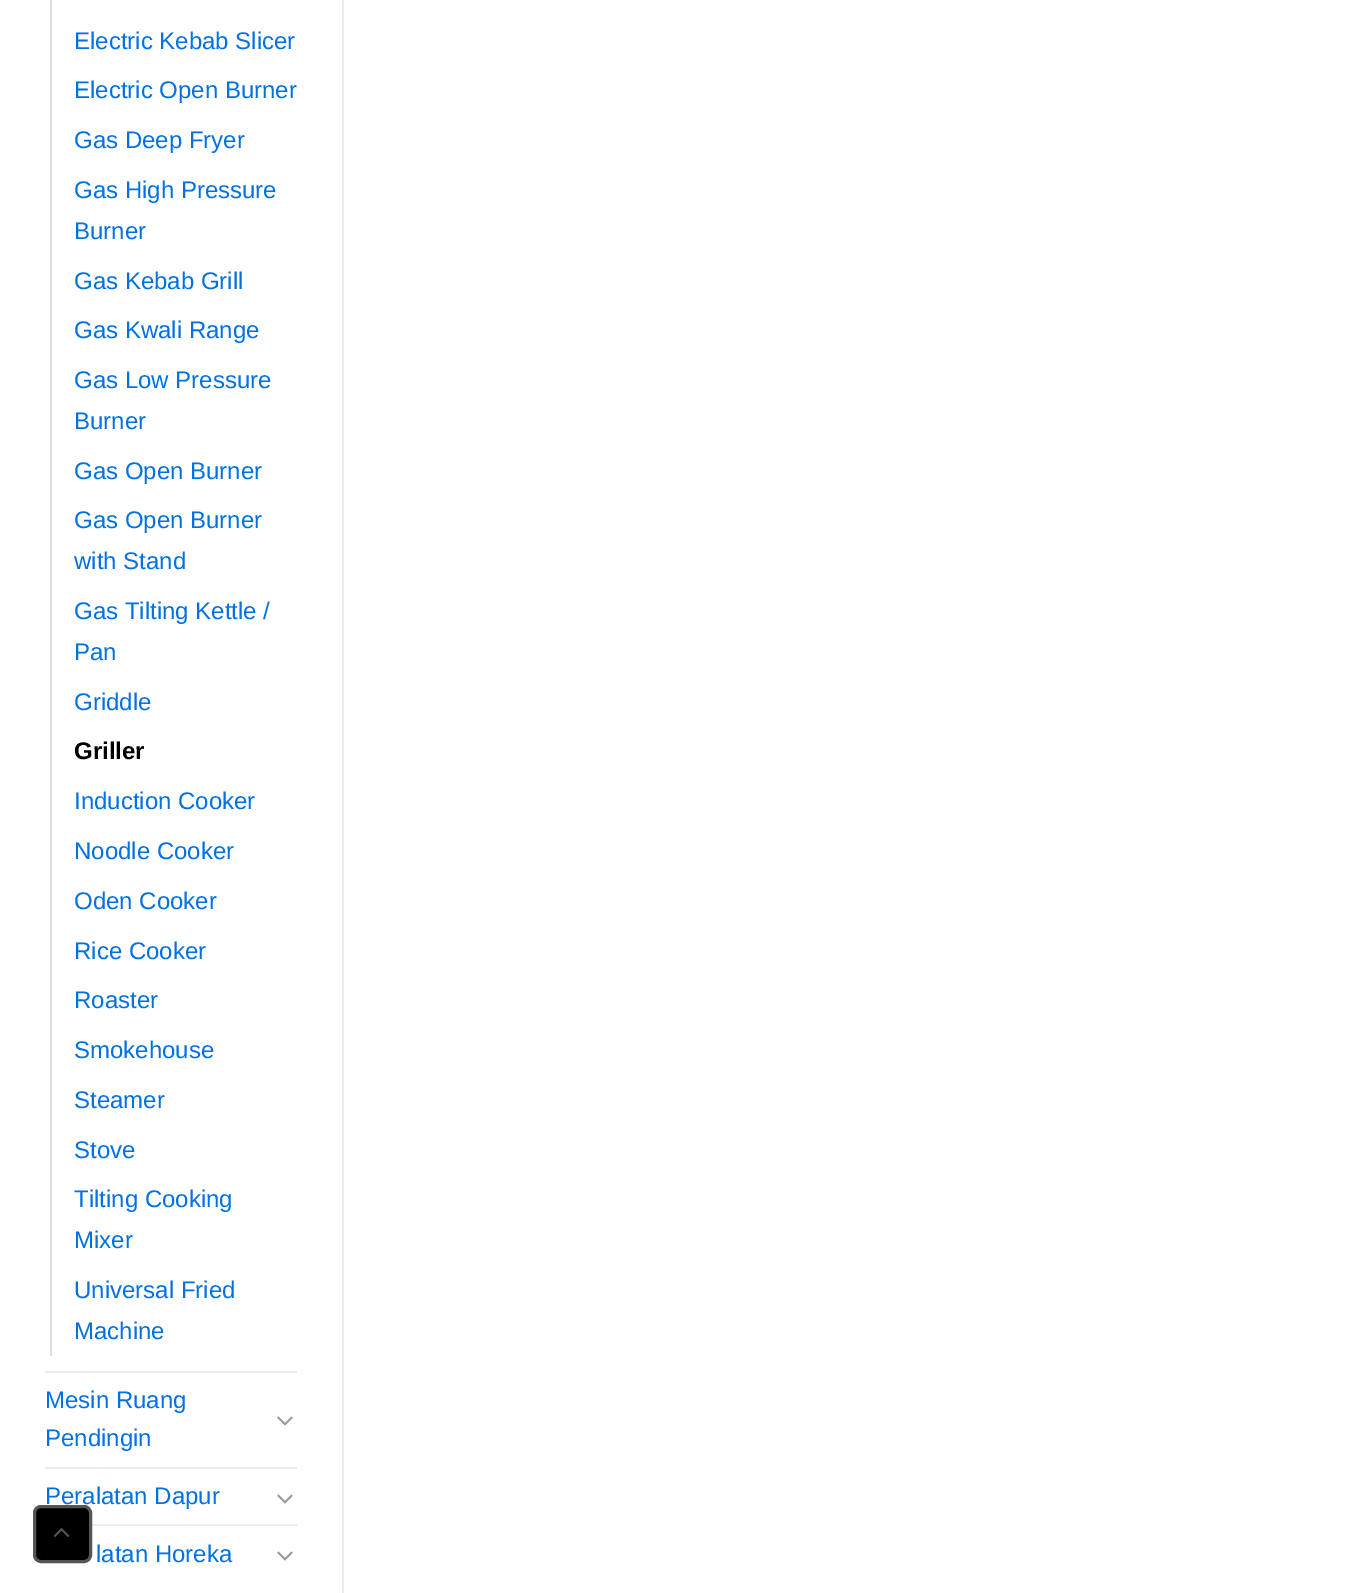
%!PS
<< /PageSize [1368 1593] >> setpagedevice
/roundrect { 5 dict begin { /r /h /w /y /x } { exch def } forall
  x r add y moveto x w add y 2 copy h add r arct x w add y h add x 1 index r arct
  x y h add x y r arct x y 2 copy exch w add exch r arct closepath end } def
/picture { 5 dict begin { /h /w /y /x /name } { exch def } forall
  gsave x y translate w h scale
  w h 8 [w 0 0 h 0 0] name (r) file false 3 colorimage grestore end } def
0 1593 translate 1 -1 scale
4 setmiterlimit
1 setgray
0 0 1368 1593 rectfill
0.867 setgray
50 0 2 1356 rectfill
/LiberationSans-Regular [24 0 0 -24 0 0] selectfont
0 0.443 0.89 setrgbcolor
74 49 moveto (Electric Kebab Slicer) show
74 98 moveto (Electric Open Burner) show
74 148 moveto (Gas Deep Fryer) show
74 198 moveto (Gas High Pressure) show
74 239 moveto (Burner) show
74 289 moveto (Gas Kebab Grill) show
74 338 moveto (Gas Kwali Range) show
74 388 moveto (Gas Low Pressure) show
74 429 moveto (Burner) show
74 479 moveto (Gas Open Burner) show
74 528 moveto (Gas Open Burner) show
74 569 moveto (with Stand) show
74 619 moveto (Gas Tilting Kettle /) show
74 660 moveto (Pan) show
74 710 moveto (Griddle) show
/LiberationSans-Bold [24 0 0 -24 0 0] selectfont
0 setgray
74 759 moveto (Griller) show
/LiberationSans-Regular [24 0 0 -24 0 0] selectfont
0 0.443 0.89 setrgbcolor
74 809 moveto (Induction Cooker) show
74 859 moveto (Noodle Cooker) show
74 909 moveto (Oden Cooker) show
74 959 moveto (Rice Cooker) show
74 1008 moveto (Roaster) show
74 1058 moveto (Smokehouse) show
74 1108 moveto (Steamer) show
74 1158 moveto (Stove) show
74 1207 moveto (Tilting Cooking) show
74 1248 moveto (Mixer) show
74 1298 moveto (Universal Fried) show
74 1339 moveto (Machine) show
0.925 setgray
45 1371 252 2 rectfill
0 0.443 0.89 setrgbcolor
45 1408 moveto (Mesin Ruang) show
45 1446 moveto (Pendingin) show
(img1.rgb) 277 1416 16 10 picture
0.925 setgray
45 1467 252 2 rectfill
0 0.443 0.89 setrgbcolor
45 1504 moveto (Peralatan Dapur) show
(img1.rgb) 277 1494 16 10 picture
0.925 setgray
92 1524 205 2 rectfill
0 0.443 0.89 setrgbcolor
96 1562 moveto (latan Horeka) show
(img1.rgb) 277 1551 16 10 picture
0.925 setgray
342 0 2 1593 rectfill
0 setgray
34.5 1506.5 56 55 6.5 roundrect gsave fill grestore
0.333 setgray
3 setlinewidth
stroke
(img2.rgb) 53 1528 17 9 picture
showpage
